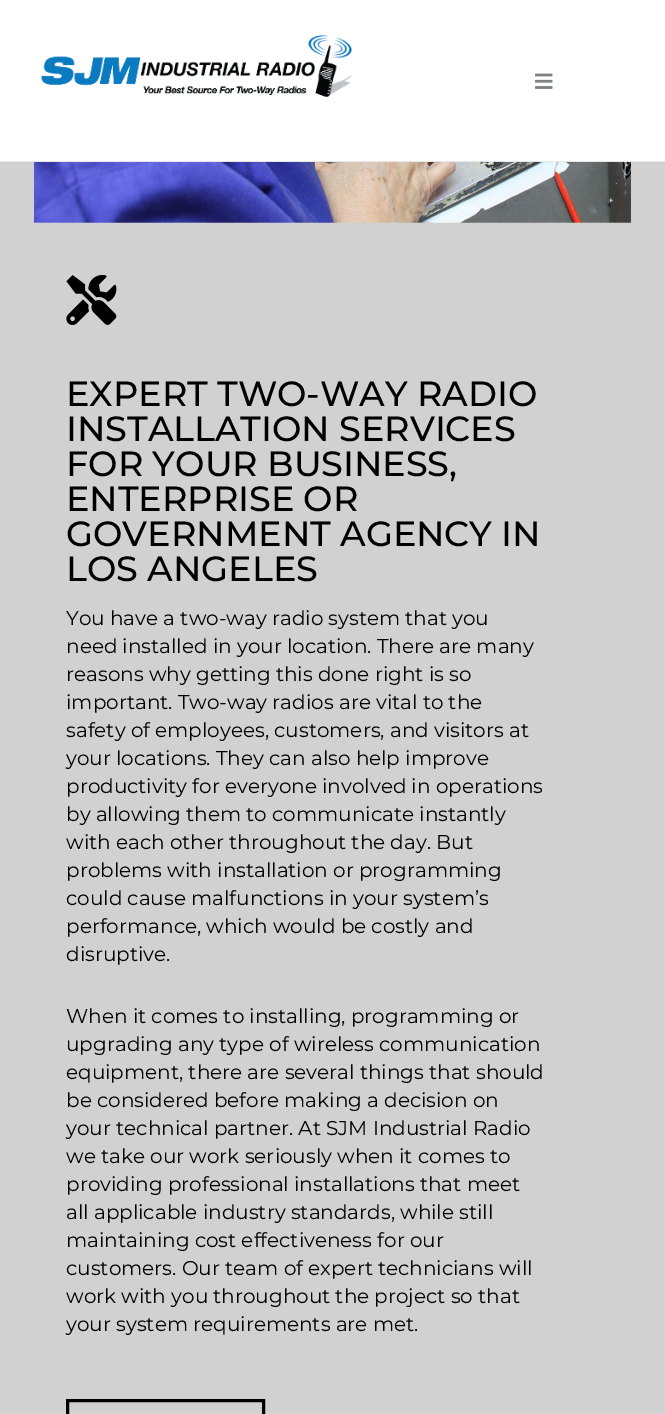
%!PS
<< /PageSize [665 1414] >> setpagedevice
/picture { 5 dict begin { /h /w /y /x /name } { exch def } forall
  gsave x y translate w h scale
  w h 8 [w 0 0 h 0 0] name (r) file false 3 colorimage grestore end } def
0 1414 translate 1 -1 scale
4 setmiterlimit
0.82 setgray
0 0 665 1414 rectfill
1 setgray
0 0 665 161 rectfill
0.906 setgray
0 161 665 1 rectfill
(img1.rgb) 41 35 311 63 picture
(img2.rgb) 535 73 18 16 picture
(img3.rgb) 34 162 597 61 picture
(img4.rgb) 66 275 51 50 picture
/Montserrat-Medium [35 0 0 -35 0 0] selectfont
0 setgray
66 406 moveto (EXPERT TWO-WAY RADIO) show
66 441 moveto (INSTALLATION SERVICES) show
66 476 moveto (FOR YOUR BUSINESS,) show
66 511 moveto (ENTERPRISE OR) show
66 546 moveto (GOVERNMENT AGENCY IN) show
66 581 moveto (LOS ANGELES) show
/Montserrat-Regular [20 0 0 -20 0 0] selectfont
66 625 moveto (You have a two-way radio system that you) show
66 653 moveto (need installed in your location. There are many) show
66 681 moveto (reasons why getting this done right is so) show
66 709 moveto (important. Two-way radios are vital to the) show
66 737 moveto (safety of employees, customers, and visitors at) show
66 765 moveto (your locations. They can also help improve) show
66 793 moveto (productivity for everyone involved in operations) show
66 821 moveto (by allowing them to communicate instantly) show
66 849 moveto (with each other throughout the day. But) show
66 877 moveto (problems with installation or programming) show
66 905 moveto (could cause malfunctions in your system’s) show
66 933 moveto (performance, which would be costly and) show
66 961 moveto (disruptive.) show
66 1023 moveto (When it comes to installing, programming or) show
66 1051 moveto (upgrading any type of wireless communication) show
66 1079 moveto (equipment, there are several things that should) show
66 1107 moveto (be considered before making a decision on) show
66 1135 moveto (your technical partner. At SJM Industrial Radio) show
66 1163 moveto (we take our work seriously when it comes to) show
66 1191 moveto (providing professional installations that meet) show
66 1219 moveto (all applicable industry standards, while still) show
66 1247 moveto (maintaining cost effectiveness for our) show
66 1275 moveto (customers. Our team of expert technicians will) show
66 1303 moveto (work with you throughout the project so that) show
66 1331 moveto (your system requirements are met.) show
3 setlinewidth
67.5 1400.5 196 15 rectstroke
showpage
